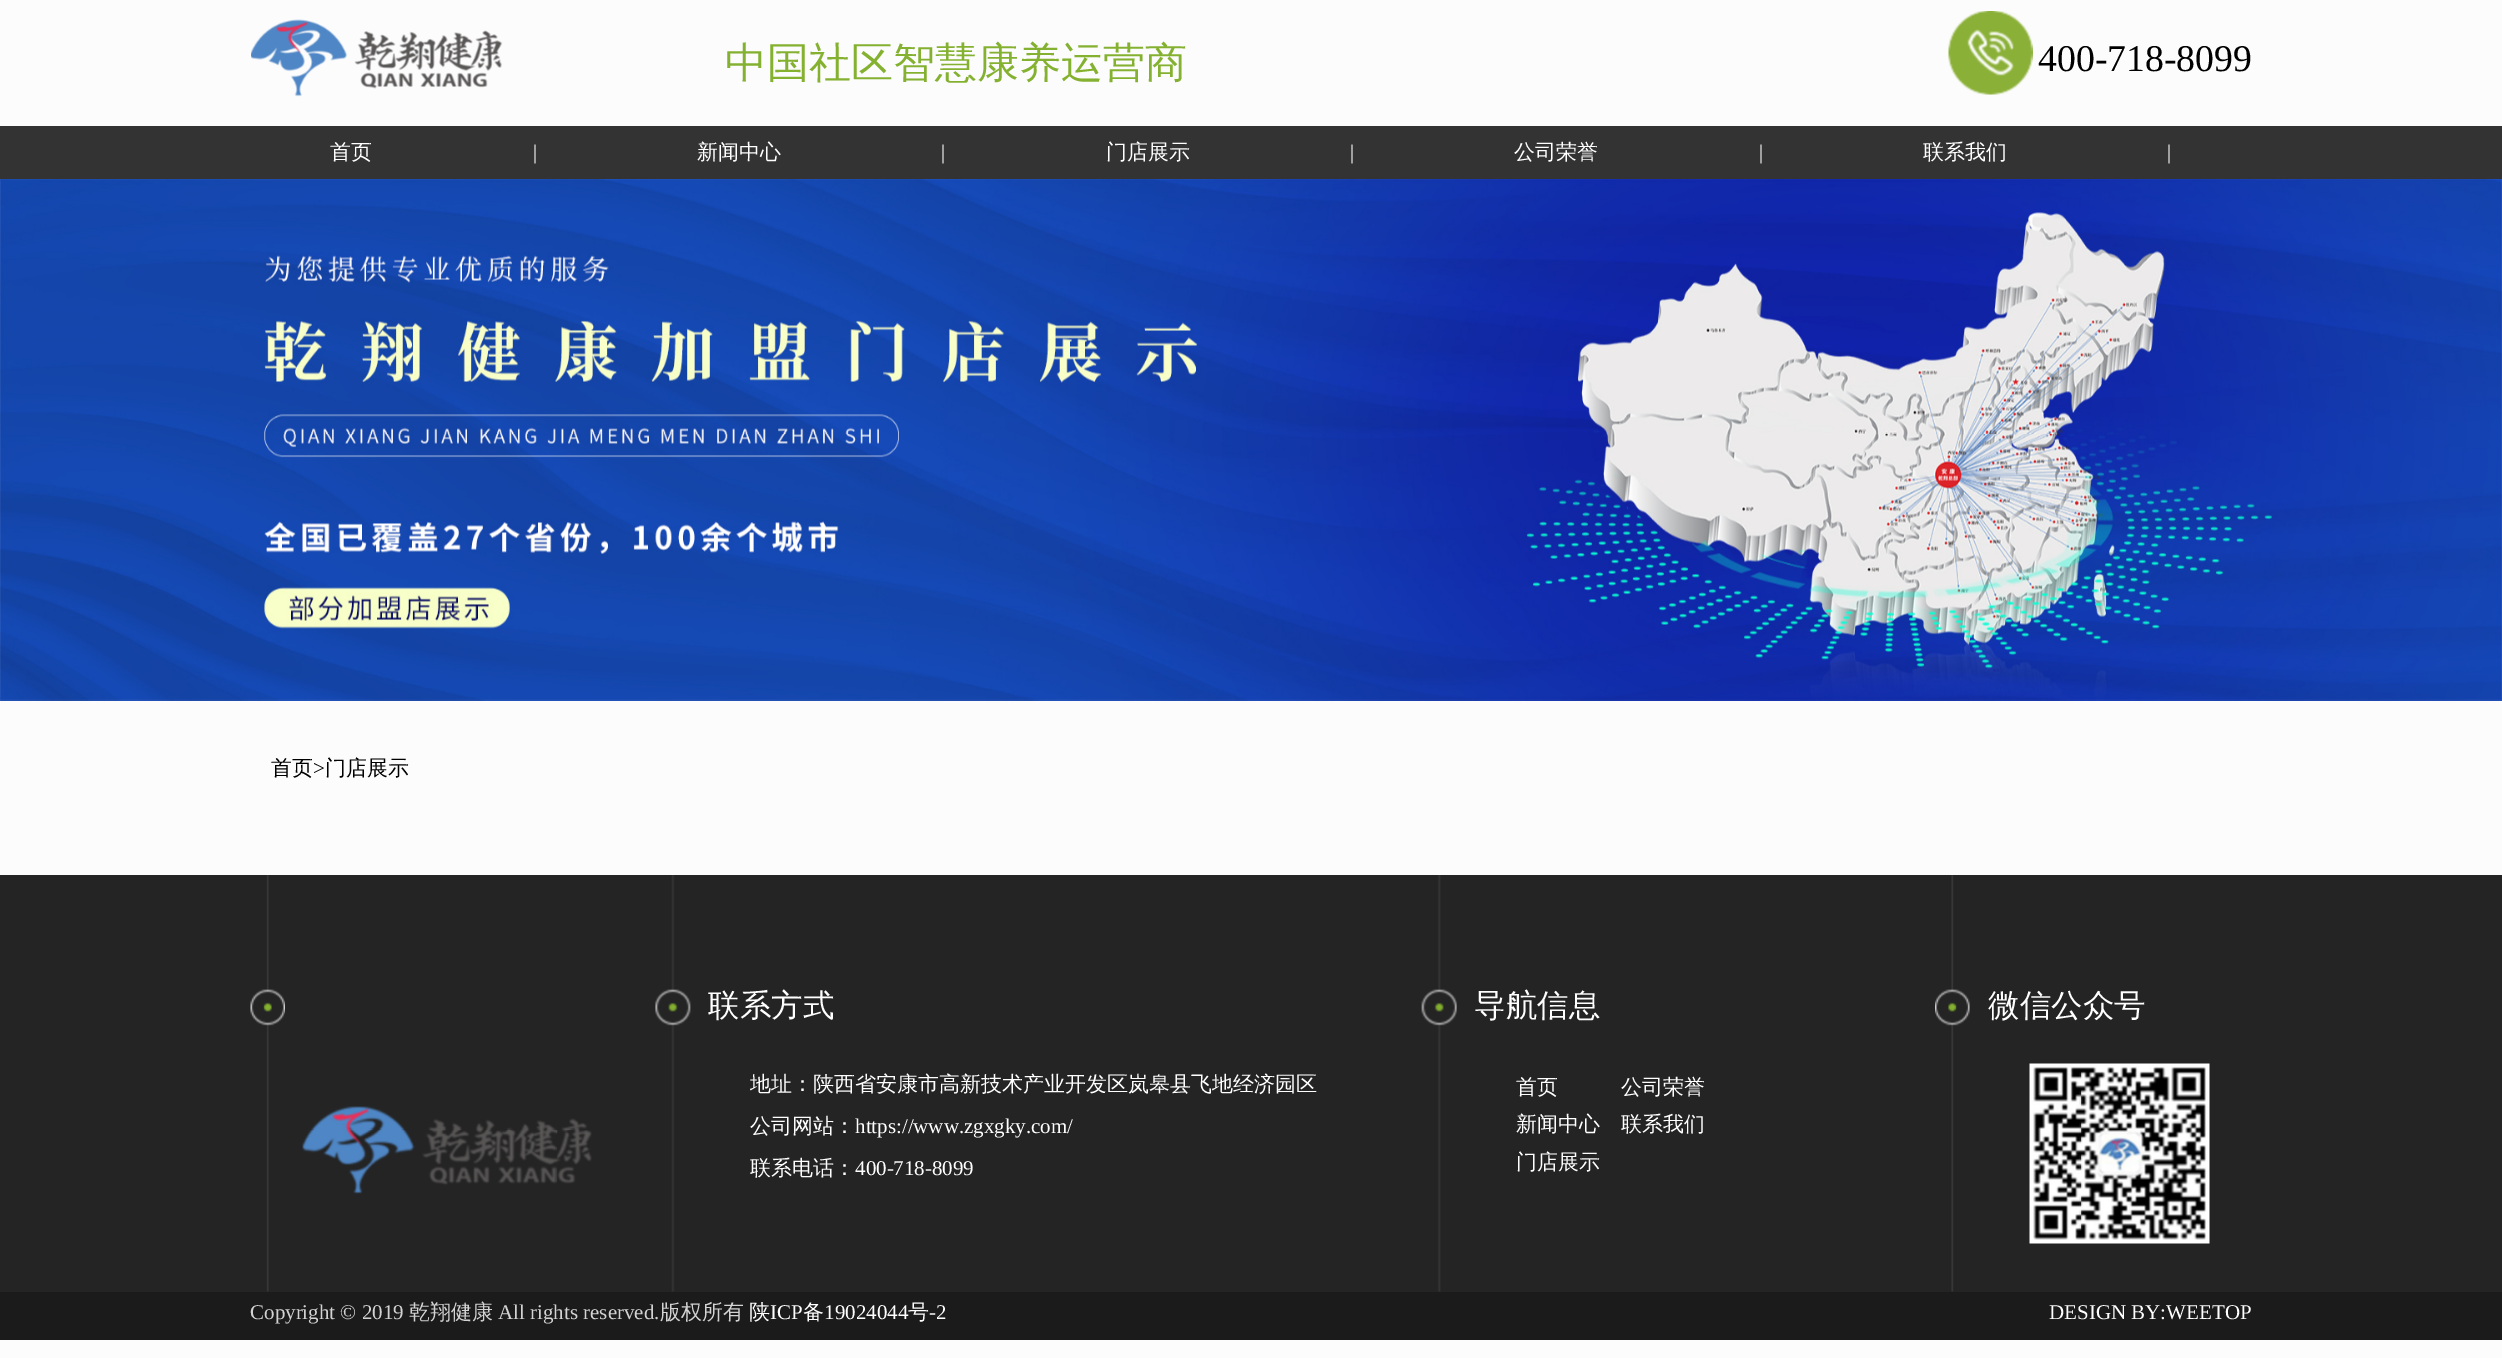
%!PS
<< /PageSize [2502 1358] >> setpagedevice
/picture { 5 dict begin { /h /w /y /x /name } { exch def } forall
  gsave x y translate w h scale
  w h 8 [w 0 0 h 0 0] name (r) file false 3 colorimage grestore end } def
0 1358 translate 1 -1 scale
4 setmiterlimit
0.988 setgray
0 0 2502 1358 rectfill
(img1.rgb) 251 19 252 78 picture
/WenQuanYiZenHei-Medium [42 0 0 -42 0 0] selectfont
0.518 0.694 0.184 setrgbcolor
725 77 moveto (中国社区智慧康养运营商) show
(img2.rgb) 1948 11 85 84 picture
/LiberationSerif-Regular [37.75 0 0 -37.75 0 0] selectfont
0 setgray
2038 71 moveto (400-718-8099) show
0.2 setgray
0 126 2502 53 rectfill
/WenQuanYiZenHei-Medium [21 0 0 -21 0 0] selectfont
1 setgray
330 159 moveto (首页) show
/LiberationSerif-Regular [21 0 0 -21 0 0] selectfont
533 159 moveto (|) show
/WenQuanYiZenHei-Medium [21 0 0 -21 0 0] selectfont
697 159 moveto (新闻中心) show
/LiberationSerif-Regular [21 0 0 -21 0 0] selectfont
941 159 moveto (|) show
/WenQuanYiZenHei-Medium [21 0 0 -21 0 0] selectfont
1106 159 moveto (门店展示) show
/LiberationSerif-Regular [21 0 0 -21 0 0] selectfont
1350 159 moveto (|) show
/WenQuanYiZenHei-Medium [21 0 0 -21 0 0] selectfont
1514 159 moveto (公司荣誉) show
/LiberationSerif-Regular [21 0 0 -21 0 0] selectfont
1759 159 moveto (|) show
/WenQuanYiZenHei-Medium [21 0 0 -21 0 0] selectfont
1923 159 moveto (联系我们) show
/LiberationSerif-Regular [21 0 0 -21 0 0] selectfont
2167 159 moveto (|) show
(img3.rgb) 0 179 2502 522 picture
/WenQuanYiZenHei-Medium [21 0 0 -21 0 0] selectfont
0 setgray
271 775 moveto (首页) show
/LiberationSerif-Regular [21 0 0 -21 0 0] selectfont
313 775 moveto (>) show
/WenQuanYiZenHei-Medium [21 0 0 -21 0 0] selectfont
325 775 moveto (门店展示) show
0.141 setgray
0 875 2502 417 rectfill
(img4.rgb) 250 875 35 417 picture
(img5.rgb) 302 1106 290 88 picture
(img6.rgb) 655 875 36 417 picture
/WenQuanYiZenHei-Medium [31.5 0 0 -31.5 0 0] selectfont
1 setgray
708 1016 moveto (联系方式) show
/WenQuanYiZenHei-Medium [21 0 0 -21 0 0] selectfont
750 1091 moveto (地址：陕西省安康市高新技术产业开发区岚皋县飞地经济园区) show
750 1133 moveto (公司网站：) show
/LiberationSerif-Regular [21 0 0 -21 0 0] selectfont
855 1133 moveto (https://www.zgxgky.com/) show
/WenQuanYiZenHei-Medium [21 0 0 -21 0 0] selectfont
750 1175 moveto (联系电话：) show
/LiberationSerif-Regular [21 0 0 -21 0 0] selectfont
855 1175 moveto (400-718-8099) show
(img7.rgb) 1421 875 36 417 picture
/WenQuanYiZenHei-Medium [31.5 0 0 -31.5 0 0] selectfont
1474 1016 moveto (导航信息) show
/WenQuanYiZenHei-Medium [21 0 0 -21 0 0] selectfont
1516 1094 moveto (首页) show
1516 1131 moveto (新闻中心) show
1516 1169 moveto (门店展示) show
1621 1094 moveto (公司荣誉) show
1621 1131 moveto (联系我们) show
(img8.rgb) 1935 875 35 417 picture
/WenQuanYiZenHei-Medium [31.5 0 0 -31.5 0 0] selectfont
1988 1016 moveto (微信公众号) show
(img9.rgb) 2029 1063 181 181 picture
0.106 setgray
0 1292 2502 48 rectfill
/LiberationSerif-Regular [21 0 0 -21 0 0] selectfont
0.827 setgray
250 1319 moveto (Copyright © 2019) show
/WenQuanYiZenHei-Medium [21 0 0 -21 0 0] selectfont
409 1319 moveto (乾翔健康) show
/LiberationSerif-Regular [21 0 0 -21 0 0] selectfont
498 1319 moveto (All rights reserved.) show
/WenQuanYiZenHei-Medium [21 0 0 -21 0 0] selectfont
660 1319 moveto (版权所有) show
1 setgray
749 1319 moveto (陕) show
/LiberationSerif-Regular [21 0 0 -21 0 0] selectfont
770 1319 moveto (ICP) show
/WenQuanYiZenHei-Medium [21 0 0 -21 0 0] selectfont
803 1319 moveto (备) show
/LiberationSerif-Regular [21 0 0 -21 0 0] selectfont
824 1319 moveto (19024044) show
/WenQuanYiZenHei-Medium [21 0 0 -21 0 0] selectfont
908 1319 moveto (号) show
/LiberationSerif-Regular [21 0 0 -21 0 0] selectfont
929 1319 moveto (-2) show
2049 1319 moveto (DESIGN BY:WEETOP) show
showpage
